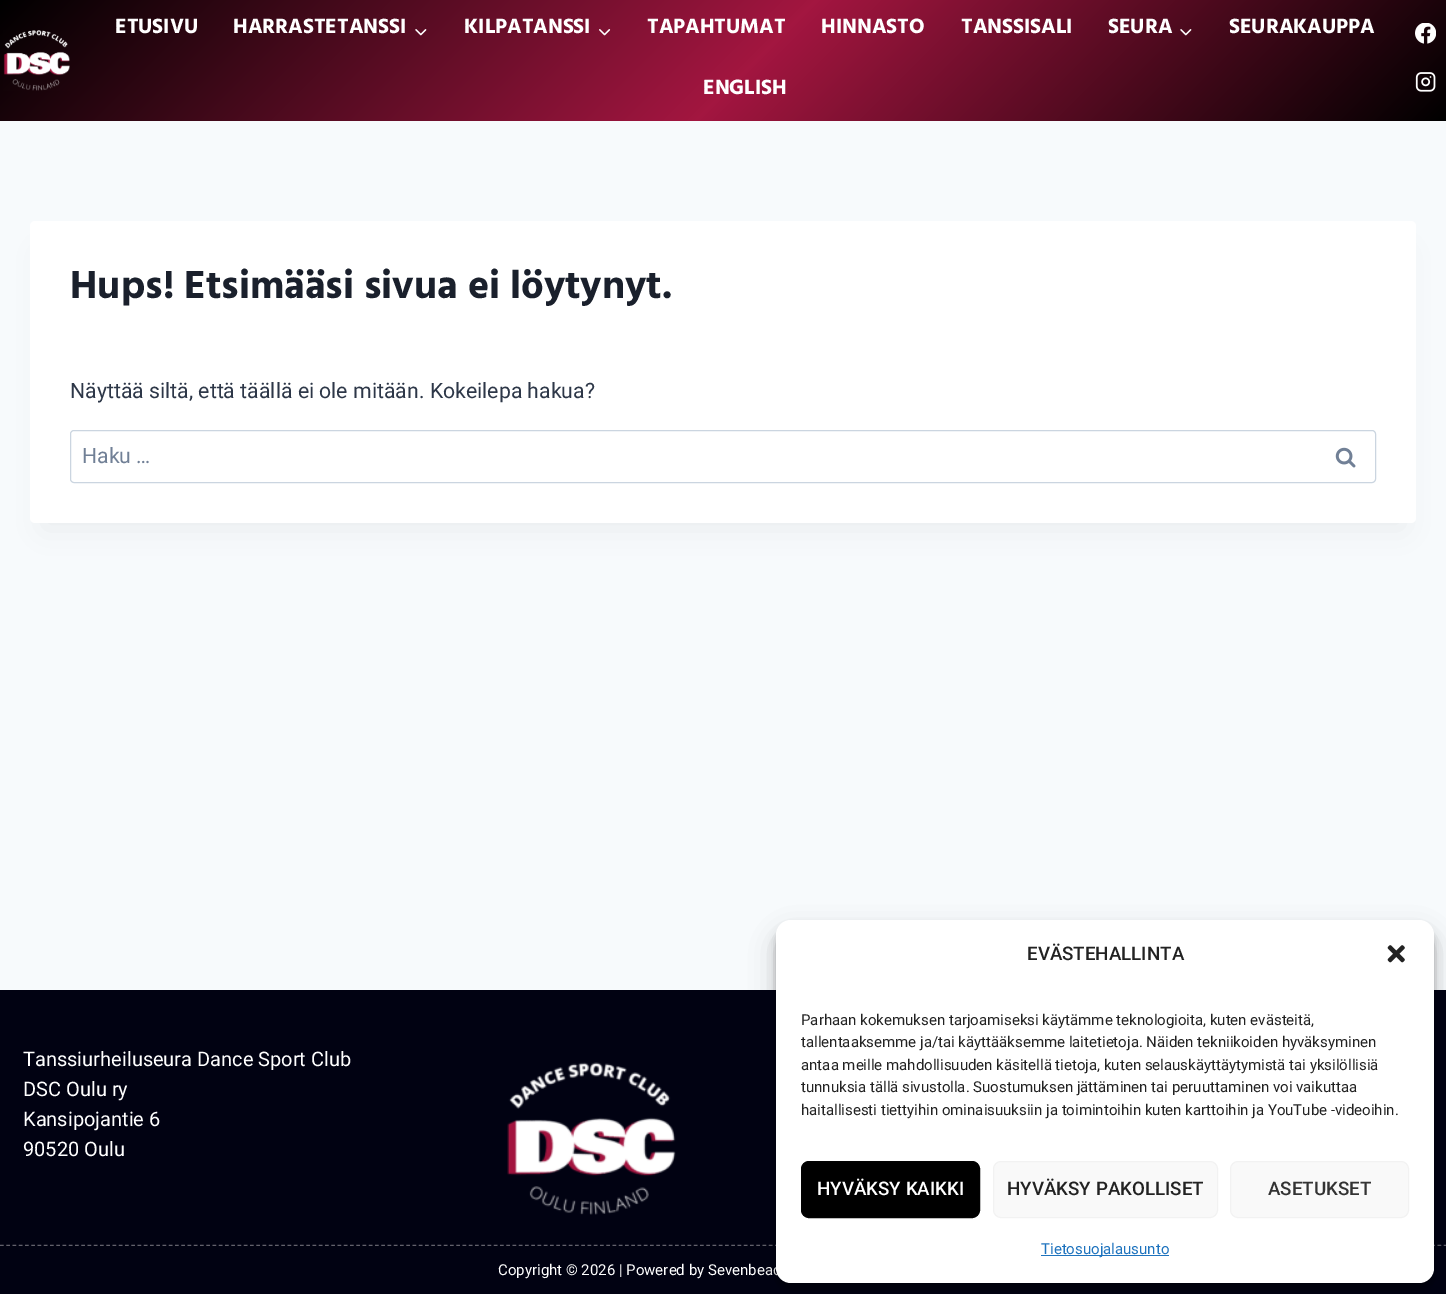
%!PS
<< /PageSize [1446 1294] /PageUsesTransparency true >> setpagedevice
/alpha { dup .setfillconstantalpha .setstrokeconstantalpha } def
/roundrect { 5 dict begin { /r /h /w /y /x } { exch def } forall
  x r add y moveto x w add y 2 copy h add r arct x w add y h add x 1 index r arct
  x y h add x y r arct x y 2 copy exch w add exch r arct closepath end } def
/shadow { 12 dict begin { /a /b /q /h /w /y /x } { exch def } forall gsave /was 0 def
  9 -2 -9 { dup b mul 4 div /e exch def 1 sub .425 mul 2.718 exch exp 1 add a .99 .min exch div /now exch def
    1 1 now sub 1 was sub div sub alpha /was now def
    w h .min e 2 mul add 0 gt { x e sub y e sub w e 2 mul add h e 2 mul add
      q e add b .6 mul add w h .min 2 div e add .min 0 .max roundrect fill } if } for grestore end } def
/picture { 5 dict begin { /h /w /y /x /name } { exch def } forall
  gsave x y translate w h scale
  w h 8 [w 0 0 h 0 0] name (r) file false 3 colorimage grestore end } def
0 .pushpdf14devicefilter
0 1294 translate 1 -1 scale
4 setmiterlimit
0.969 0.98 0.988 setrgbcolor
0 0 1446 1294 rectfill
gsave newpath 0 0 moveto 1446 0 lineto 1446 121 lineto 0 121 lineto closepath clip newpath
<< /ShadingType 2 /ColorSpace /DeviceRGB /Coords [331 -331 1115 453] /Extend [true true] /Function << /FunctionType 3 /Domain [0 1] /Functions [<< /FunctionType 2 /Domain [0 1] /C0 [0 0 0] /C1 [0.639 0.086 0.251] /N 1 >> << /FunctionType 2 /Domain [0 1] /C0 [0.639 0.086 0.251] /C1 [0 0 0] /N 1 >>] /Bounds [0.52] /Encode [0 1 0 1] >> >> shfill grestore
(img1.rgb) 3 30 67 61 picture
/HindGuntur-Bold [21.25 0 0 -21.25 0 0] selectfont
1 setgray
115 33 moveto (ETUSIVU) show
233 33 moveto (HARRASTETANSSI) show
(img2.rgb) 415 29 12 7 picture
464 33 moveto (KILPATANSSI) show
(img3.rgb) 599 29 12 7 picture
647 33 moveto (TAPAHTUMAT) show
821 33 moveto (HINNASTO) show
961 33 moveto (TANSSISALI) show
1108 33 moveto (SEURA) show
(img4.rgb) 1180 29 12 7 picture
1229 33 moveto (SEURAKAUPPA) show
703 94 moveto (ENGLISH) show
(img5.rgb) 1415 23 21 21 picture
(img6.rgb) 1415 72 21 20 picture
0 setgray
43 253 1361 276 0 15.5 0.05 shadow
1 setgray
30 221 1386 302 5 roundrect fill
/HindGuntur-Bold [40 0 0 -40 0 0] selectfont
0.102 0.125 0.173 setrgbcolor
70 298 moveto (Hups! Etsimääsi sivua ei löytynyt.) show
/Roboto-Regular [21.25 0 0 -21.25 0 0] selectfont
0.176 0.216 0.282 setrgbcolor
70 398 moveto (Näyttää siltä, että täällä ei ole mitään. Kokeilepa hakua?) show
0.796 0.835 0.878 setrgbcolor
70.5 430.5 1305 52 3.5 roundrect stroke
0.443 0.502 0.588 setrgbcolor
82 463 moveto (Haku …) show
(img7.rgb) 1335 447 21 21 picture
0.004 0.008 0.071 setrgbcolor
0 990 1446 256 rectfill
0.384 0.38 0.42 setrgbcolor
1.2 setlinewidth
[3.75 2.5] 0 setdash
newpath 0 1245.5 moveto 1446 1245.5 lineto stroke
/Roboto-Regular [20 0 0 -20 0 0] selectfont
1 setgray
23 1066 moveto (Tanssiurheiluseura Dance Sport Club) show
23 1096 moveto (DSC Oulu ry) show
23 1126 moveto (Kansipojantie 6) show
23 1156 moveto (90520 Oulu) show
(img8.rgb) 507 1062 169 153 picture
0.004 0.008 0.071 setrgbcolor
0 1246 1446 48 rectfill
/Roboto-Regular [15 0 0 -15 0 0] selectfont
1 setgray
498 1275 moveto (Copyright © 2026 | Powered by Sevenbeac) show
0 setgray
776 928 658 362 15 4 0.23 shadow
776 933 658 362 15 12.5 0.19 shadow
1 setgray
776 920 658 363 15 roundrect fill
/Roboto-Medium [18.75 0 0 -18.75 0 0] selectfont
0.133 setgray
1027 960 moveto (EVÄSTEHALLINTA) show
(img9.rgb) 1387 945 18 18 picture
/Roboto-Regular [15 0 0 -15 0 0] selectfont
801 1025 moveto (Parhaan kokemuksen tarjoamiseksi käytämme teknologioita, kuten evästeitä,) show
801 1047 moveto (tallentaaksemme ja/tai käyttääksemme laitetietoja. Näiden tekniikoiden hyväksyminen) show
801 1070 moveto (antaa meille mahdollisuuden käsitellä tietoja, kuten selauskäyttäytymistä tai yksilöllisiä) show
801 1092 moveto (tunnuksia tällä sivustolla. Suostumuksen jättäminen tai peruuttaminen voi vaikuttaa) show
801 1115 moveto (haitallisesti tiettyihin ominaisuuksiin ja toimintoihin kuten karttoihin ja YouTube -videoihin.) show
0 setgray
801.5 1161.5 178 56 7.5 roundrect gsave fill grestore
0.008 setgray
1 setlinewidth
[] 0 setdash
stroke
/Roboto-Medium [18.75 0 0 -18.75 0 0] selectfont
1 setgray
817 1195 moveto (HYVÄKSY KAIKKI) show
0.976 setgray
993.5 1161.5 224 56 7.5 roundrect gsave fill grestore
0.949 setgray
stroke
0.133 setgray
1007 1195 moveto (HYVÄKSY PAKOLLISET) show
0.976 setgray
1230.5 1161.5 178 56 7.5 roundrect gsave fill grestore
0.949 setgray
stroke
0.2 setgray
1268 1195 moveto (ASETUKSET) show
0.118 0.451 0.745 setrgbcolor
1041 1255 128 1 rectfill
/Roboto-Regular [15 0 0 -15 0 0] selectfont
1041 1254 moveto (Tietosuojalausunto) show
.poppdf14devicefilter showpage
